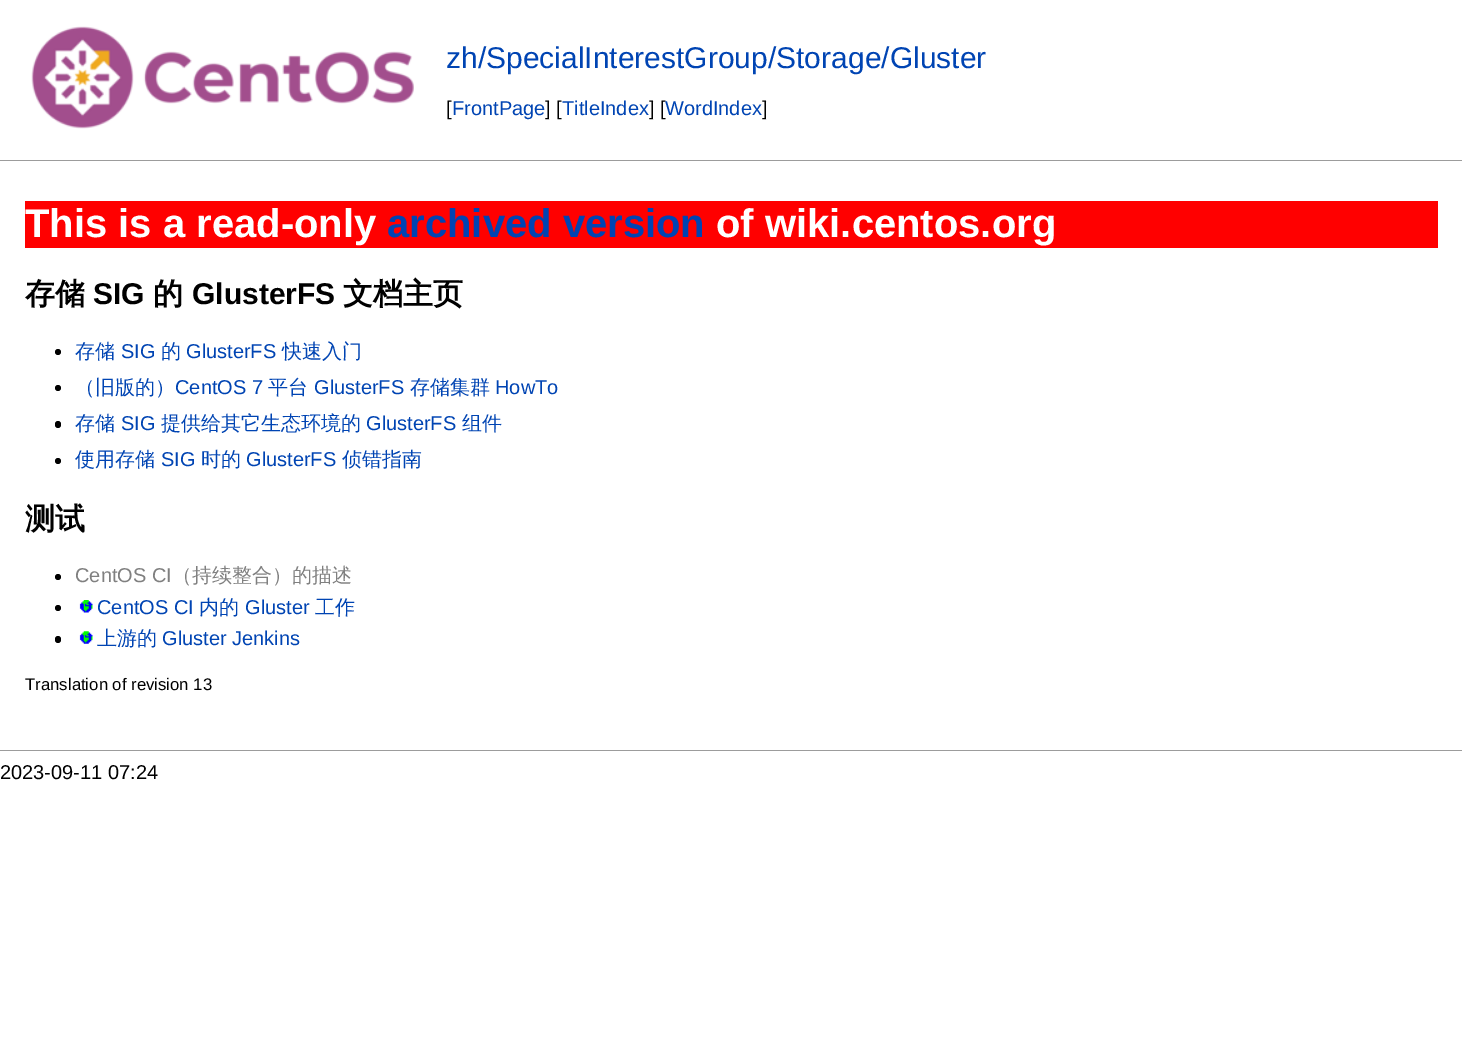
%!PS
<< /PageSize [1462 1051] >> setpagedevice
/roundrect { 5 dict begin { /r /h /w /y /x } { exch def } forall
  x r add y moveto x w add y 2 copy h add r arct x w add y h add x 1 index r arct
  x y h add x y r arct x y 2 copy exch w add exch r arct closepath end } def
/picture { 5 dict begin { /h /w /y /x /name } { exch def } forall
  gsave x y translate w h scale
  w h 8 [w 0 0 h 0 0] name (r) file false 3 colorimage grestore end } def
0 1051 translate 1 -1 scale
4 setmiterlimit
1 setgray
0 0 1462 1051 rectfill
(img1.rgb) 31 26 383 103 picture
/LiberationSans-Regular [30 0 0 -30 0 0] selectfont
0 0.267 0.702 setrgbcolor
446 68 moveto (zh/SpecialInterestGroup/Storage/Gluster) show
/LiberationSans-Regular [20 0 0 -20 0 0] selectfont
0 setgray
446 115 moveto ([) show
0 0.267 0.702 setrgbcolor
452 115 moveto (FrontPage) show
0 setgray
545 115 moveto (] [) show
0 0.267 0.702 setrgbcolor
562 115 moveto (TitleIndex) show
0 setgray
649 115 moveto (] [) show
0 0.267 0.702 setrgbcolor
665 115 moveto (WordIndex) show
0 setgray
762 115 moveto (]) show
0.612 setgray
0 160 1462 1 rectfill
1 0 0 setrgbcolor
25 201 1413 47 rectfill
/LiberationSans-Bold [40 0 0 -40 0 0] selectfont
1 setgray
25 237 moveto (This is a read-only) show
0 0.267 0.702 setrgbcolor
387 237 moveto (archived version) show
1 setgray
716 237 moveto (of wiki.centos.org) show
/WenQuanYiZenHei-Bold [30 0 0 -30 0 0] selectfont
0 setgray
25 304 moveto (存储) show
/LiberationSans-Bold [30 0 0 -30 0 0] selectfont
93 304 moveto (SIG) show
/WenQuanYiZenHei-Bold [30 0 0 -30 0 0] selectfont
153 304 moveto (的) show
/LiberationSans-Bold [30 0 0 -30 0 0] selectfont
192 304 moveto (GlusterFS) show
/WenQuanYiZenHei-Bold [30 0 0 -30 0 0] selectfont
343 304 moveto (文档主页) show
newpath 58 352 3 0 360 arc closepath fill
/WenQuanYiZenHei-Medium [20 0 0 -20 0 0] selectfont
0 0.267 0.702 setrgbcolor
75 358 moveto (存储) show
/LiberationSans-Regular [20 0 0 -20 0 0] selectfont
121 358 moveto (SIG) show
/WenQuanYiZenHei-Medium [20 0 0 -20 0 0] selectfont
161 358 moveto (的) show
/LiberationSans-Regular [20 0 0 -20 0 0] selectfont
186 358 moveto (GlusterFS) show
/WenQuanYiZenHei-Medium [20 0 0 -20 0 0] selectfont
282 358 moveto (快速入门) show
0 setgray
newpath 58 388 3 0 360 arc closepath fill
0 0.267 0.702 setrgbcolor
75 394 moveto (（旧版的）) show
/LiberationSans-Regular [20 0 0 -20 0 0] selectfont
175 394 moveto (CentOS 7) show
/WenQuanYiZenHei-Medium [20 0 0 -20 0 0] selectfont
268 394 moveto (平台) show
/LiberationSans-Regular [20 0 0 -20 0 0] selectfont
314 394 moveto (GlusterFS) show
/WenQuanYiZenHei-Medium [20 0 0 -20 0 0] selectfont
410 394 moveto (存储集群) show
/LiberationSans-Regular [20 0 0 -20 0 0] selectfont
495 394 moveto (HowTo) show
0 setgray
55 421 6 7 3 roundrect fill
/WenQuanYiZenHei-Medium [20 0 0 -20 0 0] selectfont
0 0.267 0.702 setrgbcolor
75 430 moveto (存储) show
/LiberationSans-Regular [20 0 0 -20 0 0] selectfont
121 430 moveto (SIG) show
/WenQuanYiZenHei-Medium [20 0 0 -20 0 0] selectfont
161 430 moveto (提供给其它生态环境的) show
/LiberationSans-Regular [20 0 0 -20 0 0] selectfont
366 430 moveto (GlusterFS) show
/WenQuanYiZenHei-Medium [20 0 0 -20 0 0] selectfont
462 430 moveto (组件) show
0 setgray
newpath 58 461 3 0 360 arc closepath fill
0 0.267 0.702 setrgbcolor
75 466 moveto (使用存储) show
/LiberationSans-Regular [20 0 0 -20 0 0] selectfont
161 466 moveto (SIG) show
/WenQuanYiZenHei-Medium [20 0 0 -20 0 0] selectfont
201 466 moveto (时的) show
/LiberationSans-Regular [20 0 0 -20 0 0] selectfont
246 466 moveto (GlusterFS) show
/WenQuanYiZenHei-Medium [20 0 0 -20 0 0] selectfont
342 466 moveto (侦错指南) show
/WenQuanYiZenHei-Bold [30 0 0 -30 0 0] selectfont
0 setgray
25 529 moveto (测试) show
newpath 58 577 3 0 360 arc closepath fill
/LiberationSans-Regular [20 0 0 -20 0 0] selectfont
0.502 setgray
75 582 moveto (CentOS CI) show
/WenQuanYiZenHei-Medium [20 0 0 -20 0 0] selectfont
172 582 moveto (（持续整合）的描述) show
0 setgray
newpath 58 608 3 0 360 arc closepath fill
(img2.rgb) 79 600 14 13 picture
/LiberationSans-Regular [20 0 0 -20 0 0] selectfont
0 0.267 0.702 setrgbcolor
97 614 moveto (CentOS CI) show
/WenQuanYiZenHei-Medium [20 0 0 -20 0 0] selectfont
199 614 moveto (内的) show
/LiberationSans-Regular [20 0 0 -20 0 0] selectfont
245 614 moveto (Gluster) show
/WenQuanYiZenHei-Medium [20 0 0 -20 0 0] selectfont
315 614 moveto (工作) show
0 setgray
55 636 6 7 3 roundrect fill
(img3.rgb) 79 631 14 13 picture
0 0.267 0.702 setrgbcolor
97 645 moveto (上游的) show
/LiberationSans-Regular [20 0 0 -20 0 0] selectfont
162 645 moveto (Gluster Jenkins) show
/LiberationSans-Regular [16.75 0 0 -16.75 0 0] selectfont
0 setgray
25 690 moveto (Translation of revision 13) show
0.612 setgray
0 750 1462 1 rectfill
/LiberationSans-Regular [20 0 0 -20 0 0] selectfont
0 setgray
0 779 moveto (2023-09-11 07:24) show
showpage
